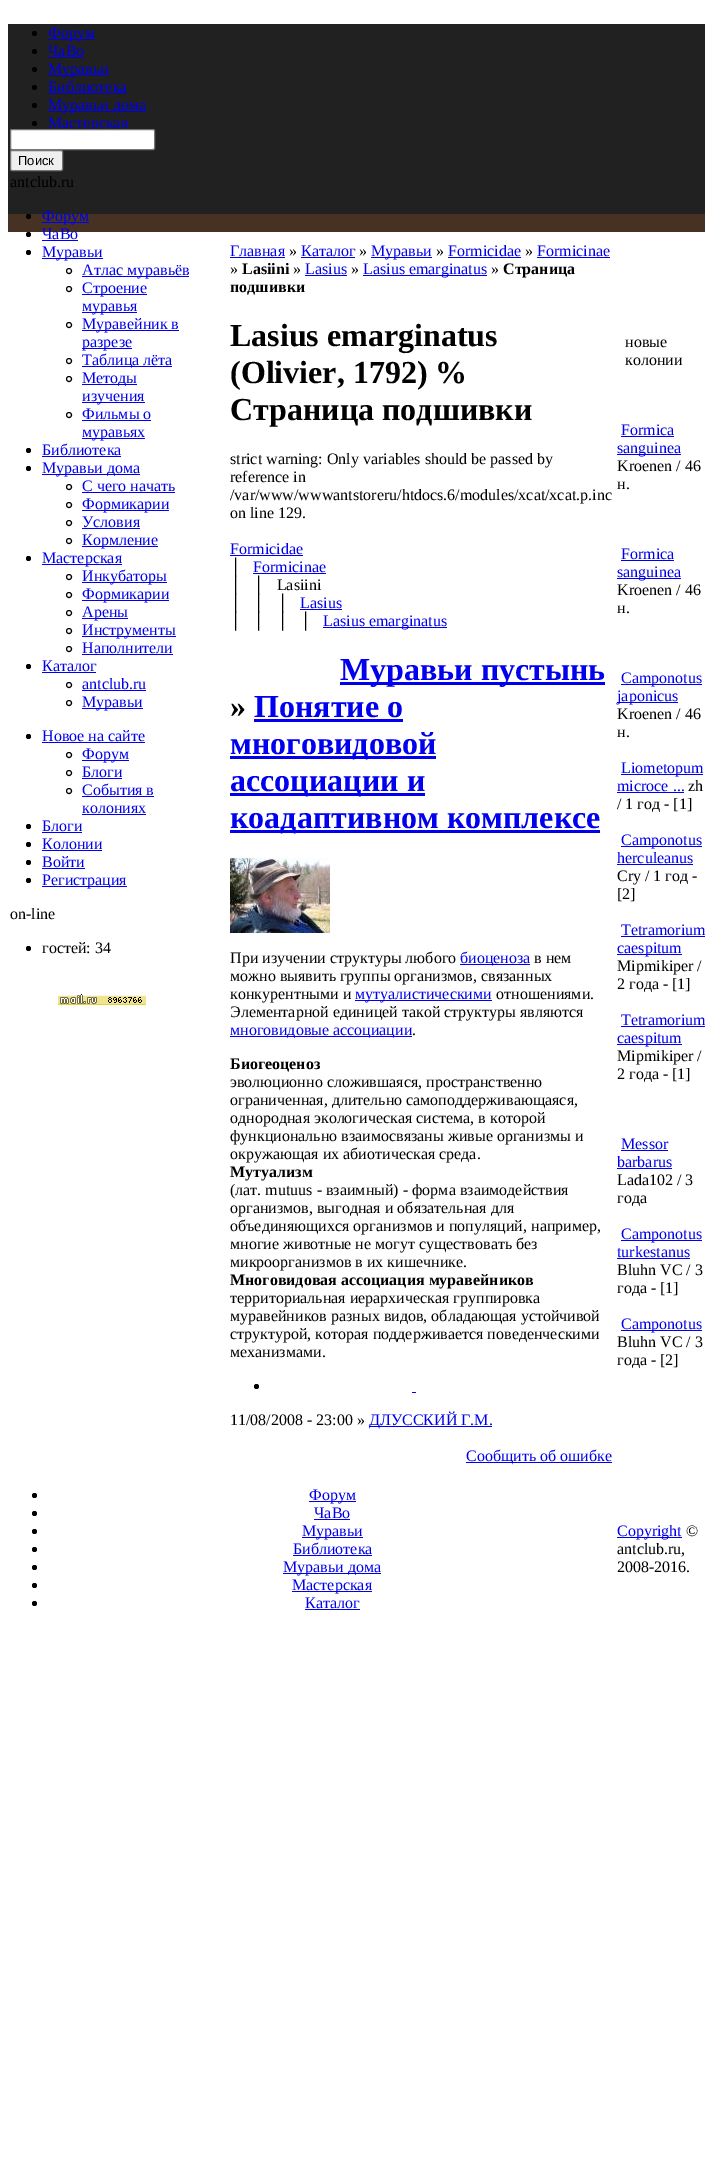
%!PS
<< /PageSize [708 2172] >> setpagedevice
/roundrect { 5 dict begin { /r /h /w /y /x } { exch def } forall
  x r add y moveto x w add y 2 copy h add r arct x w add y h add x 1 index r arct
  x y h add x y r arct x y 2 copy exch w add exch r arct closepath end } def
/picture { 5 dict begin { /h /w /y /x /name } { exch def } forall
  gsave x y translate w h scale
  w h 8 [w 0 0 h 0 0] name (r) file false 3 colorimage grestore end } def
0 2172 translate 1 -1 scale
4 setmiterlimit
1 setgray
0 0 708 2172 rectfill
0.129 setgray
8 24 697 190 rectfill
0 setgray
newpath 34.5 33.5 2.5 0 360 arc closepath fill
0 0 0.933 setrgbcolor
48 39 47 1 rectfill
/LiberationSerif-Regular [16 0 0 -16 0 0] selectfont
48 38 moveto (Форум) show
0 setgray
newpath 34.5 51.5 2.5 0 360 arc closepath fill
0 0 0.933 setrgbcolor
48 56 moveto (ЧаВо) show
48 57 36 1 rectfill
0 setgray
newpath 34.5 69.5 2.5 0 360 arc closepath fill
0 0 0.933 setrgbcolor
48 75 61 1 rectfill
48 74 moveto (Муравьи) show
0 setgray
newpath 34.5 87.5 2.5 0 360 arc closepath fill
0 0 0.933 setrgbcolor
48 92 moveto (Библиотека) show
48 93 79 1 rectfill
0 setgray
newpath 34.5 105.5 2.5 0 360 arc closepath fill
0 0 0.933 setrgbcolor
48 111 98 1 rectfill
48 110 moveto (Муравьи дома) show
0 setgray
newpath 34.5 123.5 2.5 0 360 arc closepath fill
0 0 0.933 setrgbcolor
48 128 moveto (Мастерская) show
0.278 0.192 0.133 setrgbcolor
8 214 697 18 rectfill
0 setgray
10 187 moveto (antclub.ru) show
newpath 28.5 216.5 2.5 0 360 arc closepath fill
0 0 0.933 setrgbcolor
42 222 47 1 rectfill
42 221 moveto (Форум) show
0 setgray
newpath 28.5 234.5 2.5 0 360 arc closepath fill
0 0 0.933 setrgbcolor
42 239 moveto (ЧаВо) show
42 240 36 1 rectfill
0 setgray
newpath 28.5 252.5 2.5 0 360 arc closepath fill
0 0 0.933 setrgbcolor
42 258 61 1 rectfill
42 257 moveto (Муравьи) show
0 setgray
newpath 69 271 2.5 0 360 arc closepath stroke
0 0 0.933 setrgbcolor
82 276 107 1 rectfill
82 275 moveto (Атлас муравьёв) show
0 setgray
newpath 69 289 2.5 0 360 arc closepath stroke
0 0 0.933 setrgbcolor
82 294 65 1 rectfill
82 293 moveto (Строение) show
82 312 55 1 rectfill
82 311 moveto (муравья) show
0 setgray
newpath 69 325 2.5 0 360 arc closepath stroke
0 0 0.933 setrgbcolor
82 330 97 1 rectfill
82 329 moveto (Муравейник в) show
82 348 50 1 rectfill
82 347 moveto (разрезе) show
0 setgray
newpath 69 361 2.5 0 360 arc closepath stroke
0 0 0.933 setrgbcolor
82 366 90 1 rectfill
82 365 moveto (Таблица лёта) show
0 setgray
newpath 69 379 2.5 0 360 arc closepath stroke
0 0 0.933 setrgbcolor
82 384 55 1 rectfill
82 383 moveto (Методы) show
82 402 63 1 rectfill
82 401 moveto (изучения) show
0 setgray
newpath 69 415 2.5 0 360 arc closepath stroke
0 0 0.933 setrgbcolor
82 419 moveto (Фильмы о) show
82 420 69 1 rectfill
82 438 63 1 rectfill
82 437 moveto (муравьях) show
0 setgray
newpath 28.5 450.5 2.5 0 360 arc closepath fill
0 0 0.933 setrgbcolor
42 455 moveto (Библиотека) show
42 456 79 1 rectfill
0 setgray
newpath 28.5 468.5 2.5 0 360 arc closepath fill
0 0 0.933 setrgbcolor
42 474 98 1 rectfill
42 473 moveto (Муравьи дома) show
0 setgray
newpath 69 487 2.5 0 360 arc closepath stroke
0 0 0.933 setrgbcolor
82 491 moveto (С чего начать) show
82 492 93 1 rectfill
0 setgray
newpath 69 505 2.5 0 360 arc closepath stroke
0 0 0.933 setrgbcolor
82 510 87 1 rectfill
82 509 moveto (Формикарии) show
0 setgray
newpath 69 523 2.5 0 360 arc closepath stroke
0 0 0.933 setrgbcolor
82 527 moveto (Условия) show
82 528 58 1 rectfill
0 setgray
newpath 69 541 2.5 0 360 arc closepath stroke
0 0 0.933 setrgbcolor
82 546 76 1 rectfill
82 545 moveto (Кормление) show
0 setgray
newpath 28.5 558.5 2.5 0 360 arc closepath fill
0 0 0.933 setrgbcolor
42 564 80 1 rectfill
42 563 moveto (Мастерская) show
0 setgray
newpath 69 577 2.5 0 360 arc closepath stroke
0 0 0.933 setrgbcolor
82 582 85 1 rectfill
82 581 moveto (Инкубаторы) show
0 setgray
newpath 69 595 2.5 0 360 arc closepath stroke
0 0 0.933 setrgbcolor
82 600 87 1 rectfill
82 599 moveto (Формикарии) show
0 setgray
newpath 69 613 2.5 0 360 arc closepath stroke
0 0 0.933 setrgbcolor
82 618 46 1 rectfill
82 617 moveto (Арены) show
0 setgray
newpath 69 631 2.5 0 360 arc closepath stroke
0 0 0.933 setrgbcolor
82 636 94 1 rectfill
82 635 moveto (Инструменты) show
0 setgray
newpath 69 649 2.5 0 360 arc closepath stroke
0 0 0.933 setrgbcolor
82 653 moveto (Наполнители) show
82 654 91 1 rectfill
0 setgray
newpath 28.5 666.5 2.5 0 360 arc closepath fill
0 0 0.933 setrgbcolor
42 671 moveto (Каталог) show
42 672 54 1 rectfill
0 setgray
newpath 69 685 2.5 0 360 arc closepath stroke
0 0 0.933 setrgbcolor
82 689 moveto (antclub.ru) show
82 690 64 1 rectfill
0 setgray
newpath 69 703 2.5 0 360 arc closepath stroke
0 0 0.933 setrgbcolor
82 708 61 1 rectfill
82 707 moveto (Муравьи) show
0 setgray
newpath 28.5 736.5 2.5 0 360 arc closepath fill
0 0 0.933 setrgbcolor
42 741 moveto (Новое на сайте) show
42 742 103 1 rectfill
0 setgray
newpath 69 755 2.5 0 360 arc closepath stroke
0 0 0.933 setrgbcolor
82 760 47 1 rectfill
82 759 moveto (Форум) show
0 setgray
newpath 69 773 2.5 0 360 arc closepath stroke
0 0 0.933 setrgbcolor
82 777 moveto (Блоги) show
82 778 40 1 rectfill
0 setgray
newpath 69 791 2.5 0 360 arc closepath stroke
0 0 0.933 setrgbcolor
82 795 moveto (События в) show
82 796 72 1 rectfill
82 813 moveto (колониях) show
82 814 64 1 rectfill
0 setgray
newpath 28.5 826.5 2.5 0 360 arc closepath fill
0 0 0.933 setrgbcolor
42 831 moveto (Блоги) show
42 832 40 1 rectfill
0 setgray
newpath 28.5 844.5 2.5 0 360 arc closepath fill
0 0 0.933 setrgbcolor
42 849 moveto (Колонии) show
42 850 60 1 rectfill
0 setgray
newpath 28.5 862.5 2.5 0 360 arc closepath fill
0 0 0.933 setrgbcolor
42 867 moveto (Войти) show
42 868 43 1 rectfill
0 setgray
newpath 28.5 880.5 2.5 0 360 arc closepath fill
0 0 0.933 setrgbcolor
42 886 85 1 rectfill
42 885 moveto (Peгиcтpaция) show
0 setgray
10 919 moveto (on-line) show
newpath 28.5 948.5 2.5 0 360 arc closepath fill
42 953 moveto (гостей: 34) show
(img1.rgb) 58 994 88 11 picture
0 0 0.933 setrgbcolor
230 256 moveto (Главная) show
230 257 55 1 rectfill
0 setgray
289 256 moveto (») show
0 0 0.933 setrgbcolor
301 256 moveto (Каталог) show
301 257 54 1 rectfill
0 setgray
359 256 moveto (») show
0 0 0.933 setrgbcolor
371 257 61 1 rectfill
371 256 moveto (Муравьи) show
0 setgray
436 256 moveto (») show
0 0 0.933 setrgbcolor
448 256 moveto (Formicidae) show
448 257 73 1 rectfill
0 setgray
525 256 moveto (») show
0 0 0.933 setrgbcolor
537 256 moveto (Formicinae) show
537 257 73 1 rectfill
0 setgray
230 274 moveto (») show
/LiberationSerif-Bold [16 0 0 -16 0 0] selectfont
242 274 moveto (Lasiini) show
/LiberationSerif-Regular [16 0 0 -16 0 0] selectfont
293 274 moveto (») show
0 0 0.933 setrgbcolor
305 274 moveto (Lasius) show
305 275 42 1 rectfill
0 setgray
351 274 moveto (») show
0 0 0.933 setrgbcolor
363 275 124 1 rectfill
363 274 moveto (Lasius emarginatus) show
0 setgray
491 274 moveto (») show
/LiberationSerif-Bold [16 0 0 -16 0 0] selectfont
503 274 moveto (Страница) show
230 292 moveto (подшивки) show
/LiberationSerif-Bold [32 0 0 -32 0 0] selectfont
230 346 moveto (Lasius emarginatus) show
230 383 moveto (\(Olivier, 1792\) %) show
230 420 moveto (Страница подшивки) show
/LiberationSerif-Regular [16 0 0 -16 0 0] selectfont
230 464 moveto (strict warning: Only variables should be passed by) show
230 482 moveto (reference in) show
230 500 moveto (/var/www/wwwantstoreru/htdocs.6/modules/xcat/xcat.p.inc) show
230 518 moveto (on line 129.) show
0 0 0.933 setrgbcolor
230 554 moveto (Formicidae) show
230 555 73 1 rectfill
0 setgray
230 572 moveto (│) show
0 0 0.933 setrgbcolor
253 572 moveto (Formicinae) show
253 573 73 1 rectfill
0 setgray
230 590 moveto (│   │   Lasiini) show
230 608 moveto (│   │   │) show
0 0 0.933 setrgbcolor
300 608 moveto (Lasius) show
300 609 42 1 rectfill
0 setgray
230 626 moveto (│   │   │   │) show
0 0 0.933 setrgbcolor
323 627 124 1 rectfill
323 626 moveto (Lasius emarginatus) show
340 682 265 3 rectfill
/LiberationSerif-Bold [32 0 0 -32 0 0] selectfont
340 680 moveto (Муравьи пустынь) show
0 setgray
230 717 moveto (») show
0 0 0.933 setrgbcolor
254 717 moveto (Понятие о) show
254 719 149 3 rectfill
230 756 206 3 rectfill
230 754 moveto (многовидовой) show
230 793 195 3 rectfill
230 791 moveto (ассоциации и) show
230 830 370 3 rectfill
230 828 moveto (коадаптивном комплексе) show
(img2.rgb) 230 858 100 75 picture
/LiberationSerif-Regular [16 0 0 -16 0 0] selectfont
0 setgray
230 963 moveto (При изучении структуры любого) show
0 0 0.933 setrgbcolor
460 964 70 1 rectfill
460 963 moveto (биоценоза) show
0 setgray
534 963 moveto (в нем) show
230 981 moveto (можно выявить группы организмов, связанных) show
230 999 moveto (конкурентными и) show
0 0 0.933 setrgbcolor
355 1000 137 1 rectfill
355 999 moveto (мутуалистическими) show
0 setgray
496 999 moveto (отношениями.) show
230 1017 moveto (Элементарной единицей такой структуры являются) show
0 0 0.933 setrgbcolor
230 1036 182 1 rectfill
230 1035 moveto (многовидовые ассоциации) show
0 setgray
412 1035 moveto (.) show
/LiberationSerif-Bold [16 0 0 -16 0 0] selectfont
230 1069 moveto (Биогеоценоз) show
/LiberationSerif-Regular [16 0 0 -16 0 0] selectfont
230 1087 moveto (эволюционно сложившаяся, пространственно) show
230 1105 moveto (ограниченная, длительно самоподдерживающаяся,) show
230 1123 moveto (однородная экологическая система, в которой) show
230 1141 moveto (функционально взаимосвязаны живые организмы и) show
230 1159 moveto (окружающая их абиотическая среда.) show
/LiberationSerif-Bold [16 0 0 -16 0 0] selectfont
230 1177 moveto (Мутуализм) show
/LiberationSerif-Regular [16 0 0 -16 0 0] selectfont
230 1195 moveto (\(лат. mutuus - взаимный\) - форма взаимодействия) show
230 1213 moveto (организмов, выгодная и обязательная для) show
230 1231 moveto (объединяющихся организмов и популяций, например,) show
230 1249 moveto (многие животные не могут существовать без) show
230 1267 moveto (микроорганизмов в их кишечнике.) show
/LiberationSerif-Bold [16 0 0 -16 0 0] selectfont
230 1285 moveto (Многовидовая ассоциация муравейников) show
/LiberationSerif-Regular [16 0 0 -16 0 0] selectfont
230 1303 moveto (территориальная иерархическая группировка) show
230 1321 moveto (муравейников разных видов, обладающая устойчивой) show
230 1339 moveto (структурой, которая поддерживается поведенческими) show
230 1357 moveto (механизмами.) show
newpath 256.5 1386.5 2.5 0 360 arc closepath fill
0 0 0.933 setrgbcolor
412 1392 4 1 rectfill
0 setgray
230 1425 moveto (11/08/2008 - 23:00 ») show
0 0 0.933 setrgbcolor
369 1426 123 1 rectfill
369 1425 moveto (ДЛУССКИЙ Г.М.) show
466 1462 146 1 rectfill
466 1461 moveto (Сообщить об ошибке) show
0 setgray
625 347 moveto (новые) show
625 365 moveto (колонии) show
0 0 0.933 setrgbcolor
621 435 moveto (Formica) show
621 436 53 1 rectfill
617 454 64 1 rectfill
617 453 moveto (sanguinea) show
0 setgray
617 471 moveto (Kroenen / 46) show
617 489 moveto (н.) show
0 0 0.933 setrgbcolor
621 559 moveto (Formica) show
621 560 53 1 rectfill
617 578 64 1 rectfill
617 577 moveto (sanguinea) show
0 setgray
617 595 moveto (Kroenen / 46) show
617 613 moveto (н.) show
0 0 0.933 setrgbcolor
621 684 81 1 rectfill
621 683 moveto (Camponotus) show
617 702 61 1 rectfill
617 701 moveto (japonicus) show
0 setgray
617 719 moveto (Kroenen / 46) show
617 737 moveto (н.) show
0 0 0.933 setrgbcolor
621 774 82 1 rectfill
621 773 moveto (Liometopum) show
617 791 moveto (microce ...) show
617 792 67 1 rectfill
0 setgray
688 791 moveto (zh) show
617 809 moveto (/ 1 год - [1]) show
0 0 0.933 setrgbcolor
621 846 81 1 rectfill
621 845 moveto (Camponotus) show
617 863 moveto (herculeanus) show
617 864 76 1 rectfill
0 setgray
617 881 moveto (Cry / 1 год -) show
617 899 moveto ([2]) show
0 0 0.933 setrgbcolor
621 935 moveto (Tetramorium) show
621 936 84 1 rectfill
617 954 65 1 rectfill
617 953 moveto (caespitum) show
0 setgray
617 971 moveto (Mipmikiper /) show
617 989 moveto (2 года - [1]) show
0 0 0.933 setrgbcolor
621 1025 moveto (Tetramorium) show
621 1026 84 1 rectfill
617 1044 65 1 rectfill
617 1043 moveto (caespitum) show
0 setgray
617 1061 moveto (Mipmikiper /) show
617 1079 moveto (2 года - [1]) show
0 0 0.933 setrgbcolor
621 1149 moveto (Messor) show
621 1150 47 1 rectfill
617 1167 moveto (barbarus) show
617 1168 55 1 rectfill
0 setgray
617 1185 moveto (Lada102 / 3) show
617 1203 moveto (года) show
0 0 0.933 setrgbcolor
621 1240 81 1 rectfill
621 1239 moveto (Camponotus) show
617 1257 moveto (turkestanus) show
617 1258 73 1 rectfill
0 setgray
617 1275 moveto (Bluhn VC / 3) show
617 1293 moveto (года - [1]) show
0 0 0.933 setrgbcolor
621 1330 81 1 rectfill
621 1329 moveto (Camponotus) show
0 setgray
617 1347 moveto (Bluhn VC / 3) show
617 1365 moveto (года - [2]) show
newpath 34.5 1495.5 2.5 0 360 arc closepath fill
0 0 0.933 setrgbcolor
309 1501 47 1 rectfill
309 1500 moveto (Форум) show
0 setgray
newpath 34.5 1513.5 2.5 0 360 arc closepath fill
0 0 0.933 setrgbcolor
314 1518 moveto (ЧаВо) show
314 1519 36 1 rectfill
0 setgray
newpath 34.5 1531.5 2.5 0 360 arc closepath fill
0 0 0.933 setrgbcolor
302 1537 61 1 rectfill
302 1536 moveto (Муравьи) show
0 setgray
newpath 34.5 1549.5 2.5 0 360 arc closepath fill
0 0 0.933 setrgbcolor
293 1554 moveto (Библиотека) show
293 1555 79 1 rectfill
0 setgray
newpath 34.5 1567.5 2.5 0 360 arc closepath fill
0 0 0.933 setrgbcolor
283 1573 98 1 rectfill
283 1572 moveto (Муравьи дома) show
0 setgray
newpath 34.5 1585.5 2.5 0 360 arc closepath fill
0 0 0.933 setrgbcolor
292 1591 80 1 rectfill
292 1590 moveto (Мастерская) show
0 setgray
newpath 34.5 1603.5 2.5 0 360 arc closepath fill
0 0 0.933 setrgbcolor
305 1608 moveto (Каталог) show
305 1609 55 1 rectfill
617 1537 65 1 rectfill
617 1536 moveto (Copyright) show
0 setgray
686 1536 moveto (©) show
617 1554 moveto (antclub.ru,) show
617 1572 moveto (2008-2016.) show
1 setgray
10.5 129.5 144 20 1.5 roundrect gsave fill grestore
0.463 setgray
stroke
0.937 setgray
10.5 150.5 52 20 1.5 roundrect gsave fill grestore
0.463 setgray
stroke
/LiberationSans-Regular [13 0 0 -13 0 0] selectfont
0 setgray
18 165 moveto (Поиск) show
showpage
